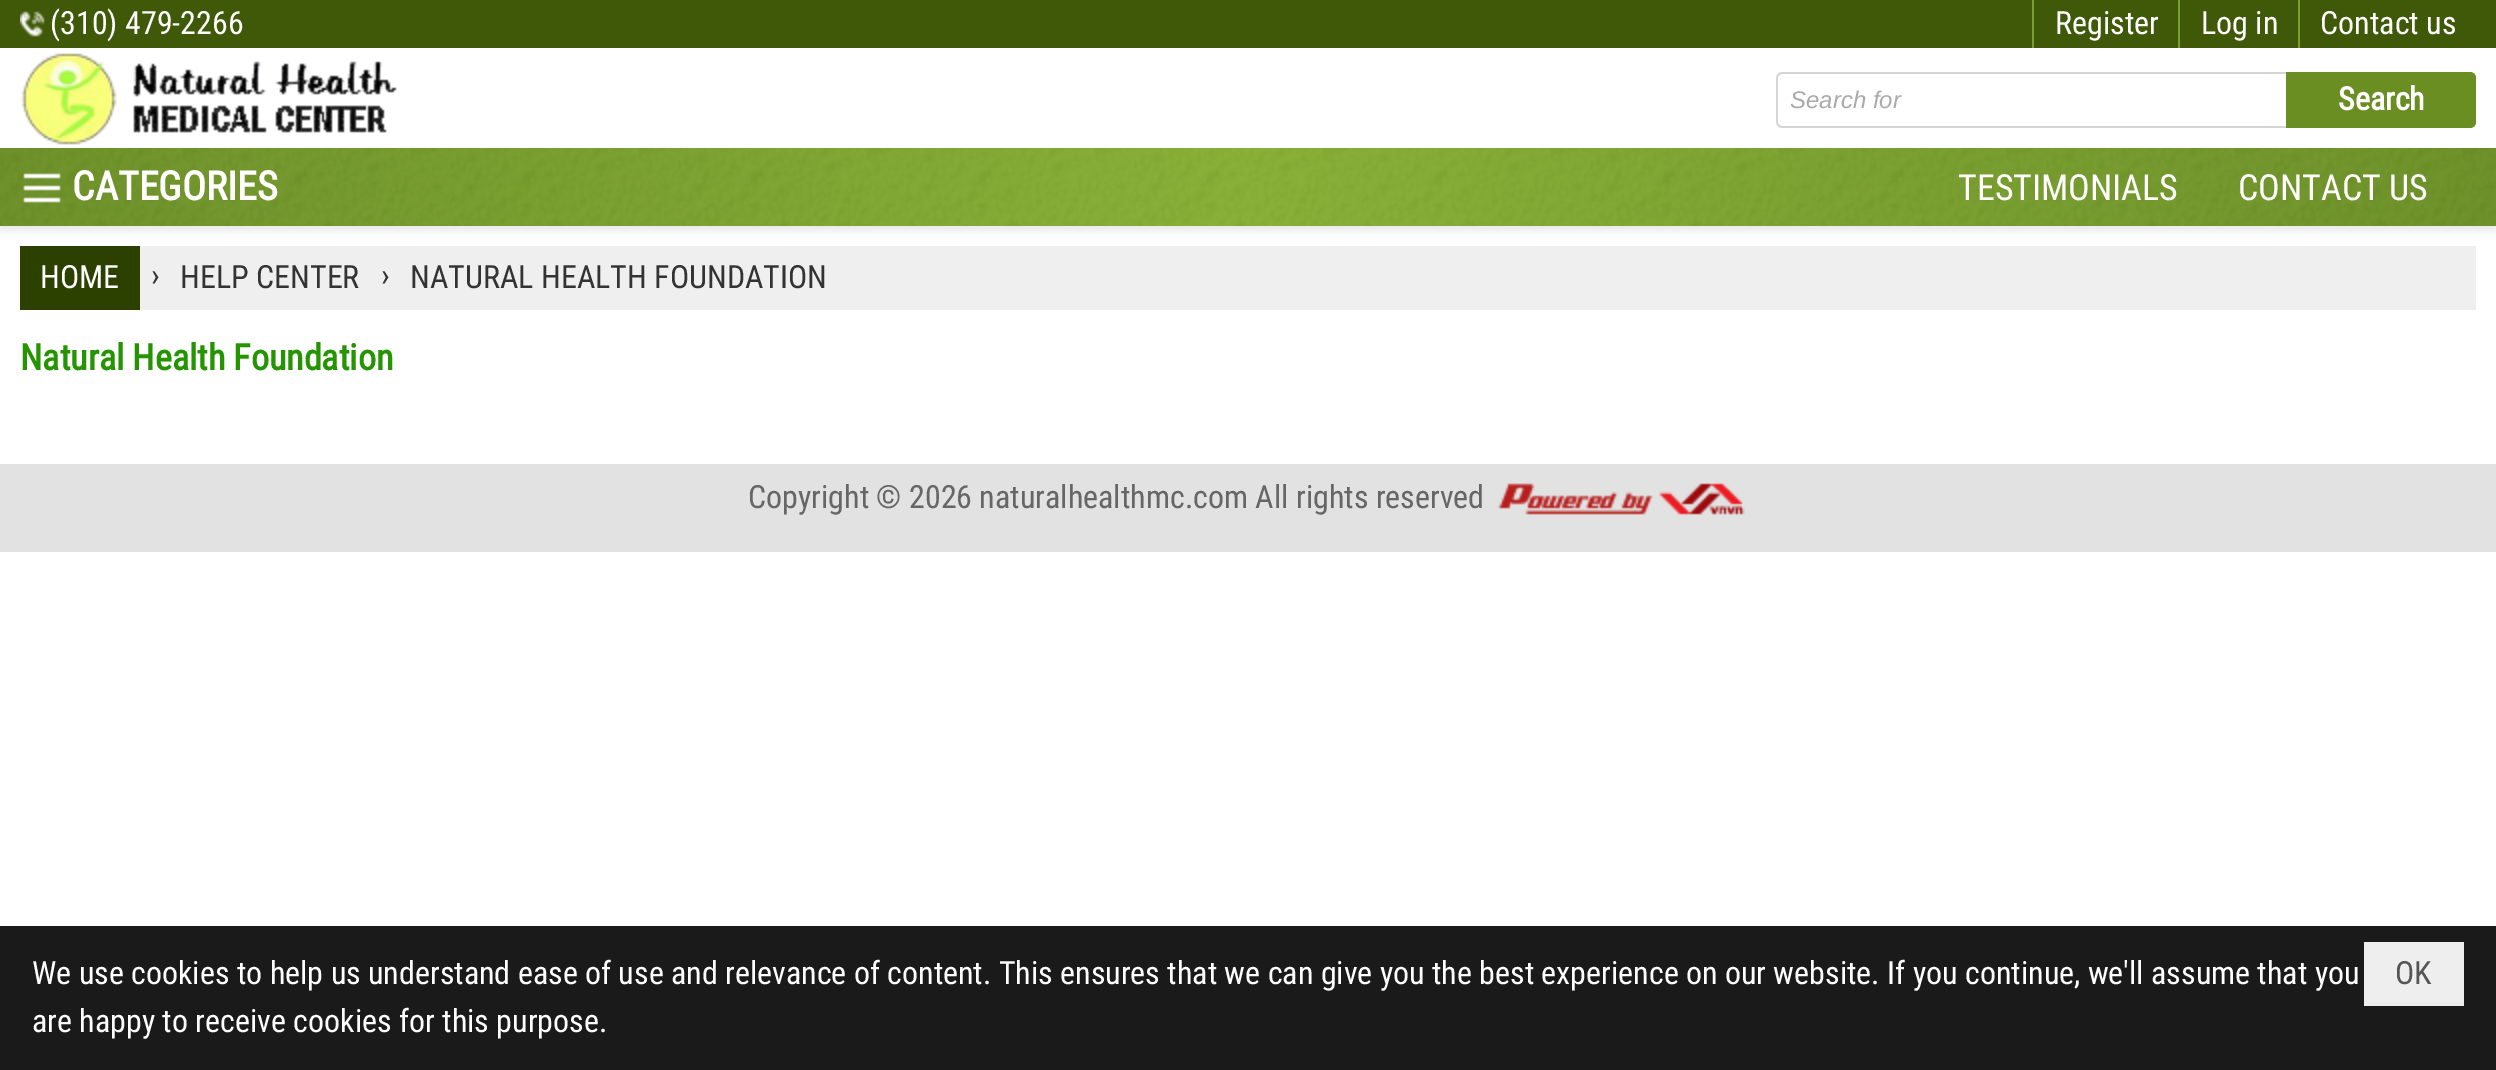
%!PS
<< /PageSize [2496 1070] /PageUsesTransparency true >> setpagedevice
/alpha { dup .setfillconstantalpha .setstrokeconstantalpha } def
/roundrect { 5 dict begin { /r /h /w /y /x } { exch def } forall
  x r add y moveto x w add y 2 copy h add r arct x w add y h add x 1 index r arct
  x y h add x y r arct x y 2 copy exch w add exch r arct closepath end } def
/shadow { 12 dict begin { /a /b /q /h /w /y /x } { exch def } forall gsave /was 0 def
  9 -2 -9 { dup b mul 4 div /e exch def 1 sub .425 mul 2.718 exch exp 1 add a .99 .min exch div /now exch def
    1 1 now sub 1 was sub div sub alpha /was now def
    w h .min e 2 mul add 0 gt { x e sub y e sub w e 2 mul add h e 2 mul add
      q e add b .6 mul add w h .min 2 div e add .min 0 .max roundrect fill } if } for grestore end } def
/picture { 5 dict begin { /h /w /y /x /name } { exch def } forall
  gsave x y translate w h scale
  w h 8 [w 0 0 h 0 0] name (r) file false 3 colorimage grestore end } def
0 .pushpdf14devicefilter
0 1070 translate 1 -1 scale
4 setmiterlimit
1 setgray
0 0 2496 1070 rectfill
0.247 0.349 0.035 setrgbcolor
0 0 2496 48 rectfill
(img1.rgb) 20 11 25 26 picture
/RobotoCondensed-Regular [32 0 0 -32 0 0] selectfont
1 setgray
50 34 moveto (\(310\) 479-2266) show
0.482 0.62 0.196 setrgbcolor
2032 0 2 48 rectfill
1 setgray
2055 34 moveto (Register) show
0.482 0.62 0.196 setrgbcolor
2178 0 2 48 rectfill
1 setgray
2201 34 moveto (Log in) show
0.482 0.62 0.196 setrgbcolor
2298 0 2 48 rectfill
1 setgray
2320 34 moveto (Contact us) show
0 setgray
0 52 2496 178 0 5 0.1 shadow
1 setgray
0 48 2496 100 rectfill
(img2.rgb) 21 53 376 92 picture
0.835 setgray
newpath 1782 72 moveto 2286 72 lineto 2286 128 lineto 1782 128 lineto 1779 128 1776 125 1776 122 curveto 1776 78 lineto 1776 75 1779 72 1782 72 curveto closepath 1782 74 moveto 2286 74 lineto 2286 126 lineto 1782 126 lineto 1780 126 1778 124 1778 122 curveto 1778 78 lineto 1778 76 1780 74 1782 74 curveto closepath eofill
/LiberationSans-Italic [24 0 0 -24 0 0] selectfont
0.667 setgray
1790 108 moveto (Search for) show
0.42 0.557 0.137 setrgbcolor
newpath 2286 72 moveto 2470 72 lineto 2473.5 72 2476 74.5 2476 78 curveto 2476 122 lineto 2476 125.5 2473.5 128 2470 128 curveto 2286 128 lineto closepath fill
/RobotoCondensed-Bold [32 0 0 -32 0 0] selectfont
1 setgray
2338 110 moveto (Search) show
(img3.rgb) 0 148 2496 78 picture
(img4.rgb) 23 173 38 30 picture
/RobotoCondensed-Bold [40 0 0 -40 0 0] selectfont
72 200 moveto (CATEGORIES) show
/RobotoCondensed-Regular [36 0 0 -36 0 0] selectfont
1958 200 moveto (TESTIMONIALS) show
2238 200 moveto (CONTACT US) show
0.937 setgray
140 246 2336 64 rectfill
0.173 0.255 0 setrgbcolor
20 246 120 64 rectfill
/RobotoCondensed-Regular [32 0 0 -32 0 0] selectfont
1 setgray
40 288 moveto (HOME) show
0.2 setgray
151 286 moveto (›) show
180 288 moveto (HELP CENTER) show
381 286 moveto (›) show
410 288 moveto (NATURAL HEALTH FOUNDATION) show
/RobotoCondensed-Bold [36 0 0 -36 0 0] selectfont
0.141 0.58 0.004 setrgbcolor
20 370 moveto (Natural Health Foundation) show
0.886 setgray
0 464 2496 88 rectfill
/RobotoCondensed-Regular [32 0 0 -32 0 0] selectfont
0.4 setgray
748 508 moveto (Copyright © 2026 naturalhealthmc.com All rights reserved) show
(img5.rgb) 1497 483 248 32 picture
0.102 setgray
0 926 2496 144 rectfill
1 setgray
32 984 moveto (We use cookies to help us understand ease of use and relevance of content. This ensures that we can give you the best experience on our website. If you continue, we'll assume that you) show
32 1032 moveto (are happy to receive cookies for this purpose.) show
0.933 setgray
2364 942 100 64 rectfill
0.333 setgray
2395 984 moveto (OK) show
.poppdf14devicefilter showpage
